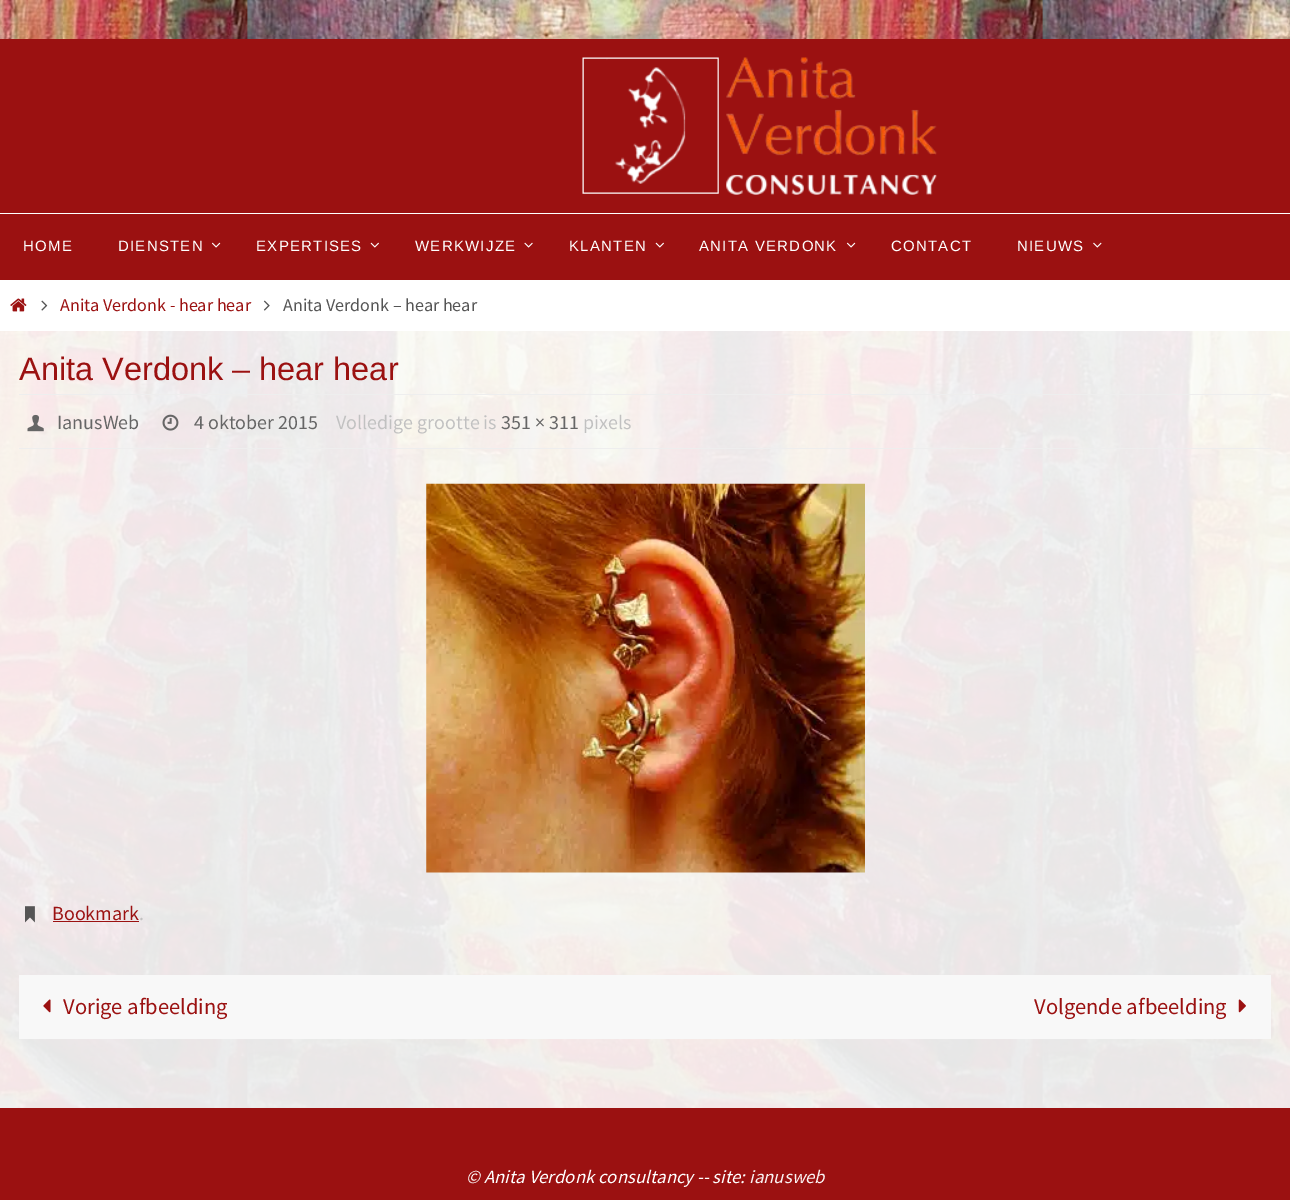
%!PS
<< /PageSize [1290 1200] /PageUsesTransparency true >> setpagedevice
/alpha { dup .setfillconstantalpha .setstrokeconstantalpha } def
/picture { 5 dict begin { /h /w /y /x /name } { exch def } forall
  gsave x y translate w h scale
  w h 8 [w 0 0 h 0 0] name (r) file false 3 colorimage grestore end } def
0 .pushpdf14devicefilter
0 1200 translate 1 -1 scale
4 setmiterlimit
1 setgray
0 0 1290 1200 rectfill
(img1.rgb) 0 0 1290 1108 picture
0.608 0.067 0.067 setrgbcolor
0 39 1290 241 rectfill
1 setgray
0 213 1290 1 rectfill
(img2.rgb) 582 57 355 138 picture
/LiberationSans-Regular [15 0 0 -15 0 0] selectfont
23 251 moveto 1.25 0 (HOME) ashow
118 251 moveto 1.25 0 (DIENSTEN) ashow
(img3.rgb) 211 242 10 6 picture
256 251 moveto 1.25 0 (EXPERTISES) ashow
(img4.rgb) 370 242 9 6 picture
415 251 moveto 1.25 0 (WERKWIJZE) ashow
(img5.rgb) 524 242 9 6 picture
569 251 moveto 1.25 0 (KLANTEN) ashow
(img4.rgb) 655 242 9 6 picture
699 251 moveto 1.25 0 (ANITA VERDONK) ashow
(img3.rgb) 846 242 10 6 picture
891 251 moveto 1.25 0 (CONTACT) ashow
1017 251 moveto 1.25 0 (NIEUWS) ashow
(img6.rgb) 1093 242 9 6 picture
0 280 1290 51 rectfill
(img7.rgb) 10 298 17 14 picture
(img8.rgb) 41 300 7 11 picture
/SourceSansPro-Regular [18 0 0 -18 0 0] selectfont
0.608 0.067 0.067 setrgbcolor
60 311 moveto (Anita Verdonk - hear hear) show
(img9.rgb) 263 300 7 11 picture
0.333 setgray
283 311 moveto (Anita Verdonk – hear hear) show
0.9 alpha
1 setgray
0 331 1290 777 rectfill
/LiberationSans-Regular [32.5 0 0 -32.5 0 0] selectfont
1 alpha
0.608 0.067 0.067 setrgbcolor
19 380 moveto (Anita Verdonk – hear hear) show
0.933 setgray
19 394 1252 1 rectfill
19 448 1252 1 rectfill
(img10.rgb) 27 414 17 18 picture
/SourceSansPro-Regular [20 0 0 -20 0 0] selectfont
0.4 setgray
57 429 moveto (IanusWeb) show
(img11.rgb) 162 414 17 17 picture
194 429 moveto (4 oktober 2015) show
0.757 setgray
336 429 moveto (Volledige grootte is) show
0.4 setgray
501 429 moveto (351 × 311) show
0.757 setgray
583 429 moveto (pixels) show
(img12.rgb) 426 483 439 390 picture
(img13.rgb) 25 906 10 17 picture
0.608 0.067 0.067 setrgbcolor
52 920 moveto (Bookmark) show
53 921 86 1 rectfill
0.757 setgray
139 920 moveto (.) show
0.973 setgray
19 975 1252 64 rectfill
(img14.rgb) 43 999 8 14 picture
/SourceSansPro-Regular [22.5 0 0 -22.5 0 0] selectfont
0.608 0.067 0.067 setrgbcolor
63 1014 moveto (Vorige afbeelding) show
1034 1014 moveto (Volgende afbeelding) show
(img15.rgb) 1238 999 8 14 picture
0 1108 1290 92 rectfill
/SourceSansPro-Italic [18.75 0 0 -18.75 0 0] selectfont
1 setgray
466 1183 moveto (© Anita Verdonk consultancy -- site:) show
0.98 0.949 0.949 setrgbcolor
749 1183 moveto (ianusweb) show
.poppdf14devicefilter showpage
